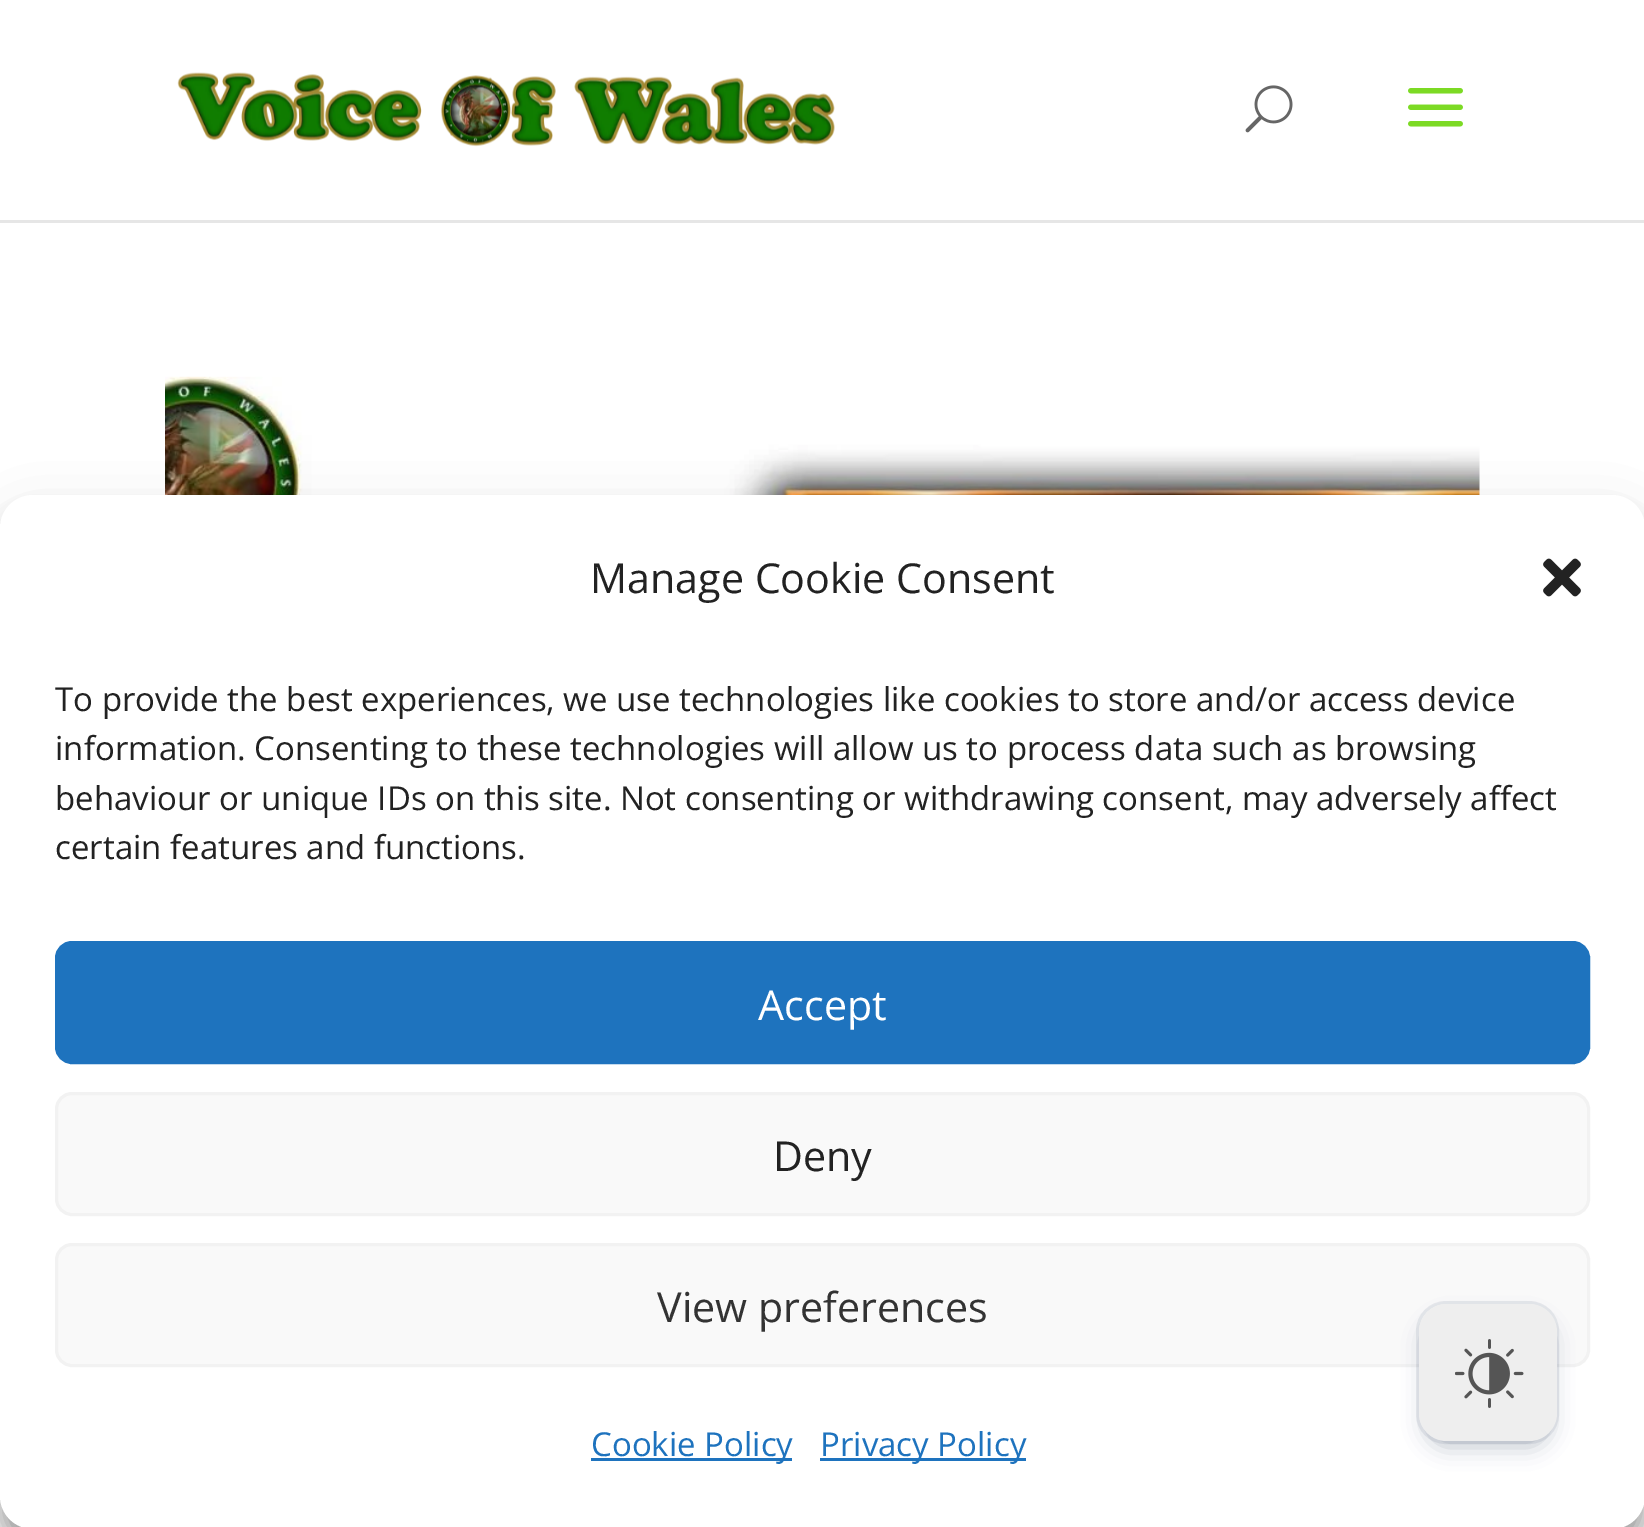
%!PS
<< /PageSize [1644 1527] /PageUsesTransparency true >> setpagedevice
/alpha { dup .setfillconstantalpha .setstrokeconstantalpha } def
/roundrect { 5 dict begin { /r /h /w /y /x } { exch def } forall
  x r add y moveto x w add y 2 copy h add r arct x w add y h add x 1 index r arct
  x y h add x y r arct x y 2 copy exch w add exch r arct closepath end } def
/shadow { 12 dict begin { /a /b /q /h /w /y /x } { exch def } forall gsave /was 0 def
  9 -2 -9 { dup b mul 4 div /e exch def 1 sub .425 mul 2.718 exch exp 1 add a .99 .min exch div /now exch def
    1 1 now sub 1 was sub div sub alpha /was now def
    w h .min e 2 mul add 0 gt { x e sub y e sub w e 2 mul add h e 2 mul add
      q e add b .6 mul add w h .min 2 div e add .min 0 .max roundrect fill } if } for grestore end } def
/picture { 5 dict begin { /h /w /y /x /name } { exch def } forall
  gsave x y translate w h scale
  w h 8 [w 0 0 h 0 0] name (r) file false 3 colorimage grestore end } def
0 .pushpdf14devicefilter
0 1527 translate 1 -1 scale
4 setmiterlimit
1 setgray
0 0 1644 1527 rectfill
0.902 setgray
newpath 0 220 moveto 0 223 lineto 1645 223 lineto 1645 3 lineto 1644 3 lineto 1644 220 lineto closepath fill
(img1.rgb) 177 72 658 75 picture
(img2.rgb) 1245 85 48 48 picture
(img3.rgb) 1408 88 55 39 picture
(img4.rgb) 165 376 1315 119 picture
0 setgray
0 512 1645 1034 33 8 0.23 shadow
0 523 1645 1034 33 27.5 0.19 shadow
1 setgray
0 495 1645 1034 33 roundrect fill
/OpenSans-Regular [41.25 0 0 -41.25 0 0] selectfont
0.133 setgray
590 593 moveto (Manage Cookie Consent) show
(img5.rgb) 1543 558 38 39 picture
/OpenSans-Regular [33 0 0 -33 0 0] selectfont
55 711 moveto (To provide the best experiences, we use technologies like cookies to store and/or access device) show
55 760 moveto (information. Consenting to these technologies will allow us to process data such as browsing) show
55 810 moveto (behaviour or unique IDs on this site. Not consenting or withdrawing consent, may adversely affect) show
55 859 moveto (certain features and functions.) show
0.118 0.451 0.745 setrgbcolor
56.5 942.5 1532 120 15.5 roundrect gsave fill grestore
3 setlinewidth
stroke
/OpenSans-Regular [41.25 0 0 -41.25 0 0] selectfont
1 setgray
758 1020 moveto (Accept) show
0.976 setgray
56.5 1093.5 1532 121 15.5 roundrect gsave fill grestore
0.949 setgray
stroke
0.133 setgray
773 1171 moveto (Deny) show
0.976 setgray
56.5 1244.5 1532 121 15.5 roundrect gsave fill grestore
0.949 setgray
stroke
0.2 setgray
657 1322 moveto (View preferences) show
0.118 0.451 0.745 setrgbcolor
591 1458 201 3 rectfill
/OpenSans-Regular [33 0 0 -33 0 0] selectfont
591 1456 moveto (Cookie Policy) show
820 1458 206 3 rectfill
820 1456 moveto (Privacy Policy) show
0.08 alpha
0.035 0.118 0.259 setrgbcolor
1417.5 1302.5 140 140 28.5 roundrect stroke
1 alpha
1425 1320 126 127 22 11 0.25 shadow
0.933 setgray
1419 1304 138 137 28 roundrect fill
(img6.rgb) 1455 1339 69 69 picture
.poppdf14devicefilter showpage
